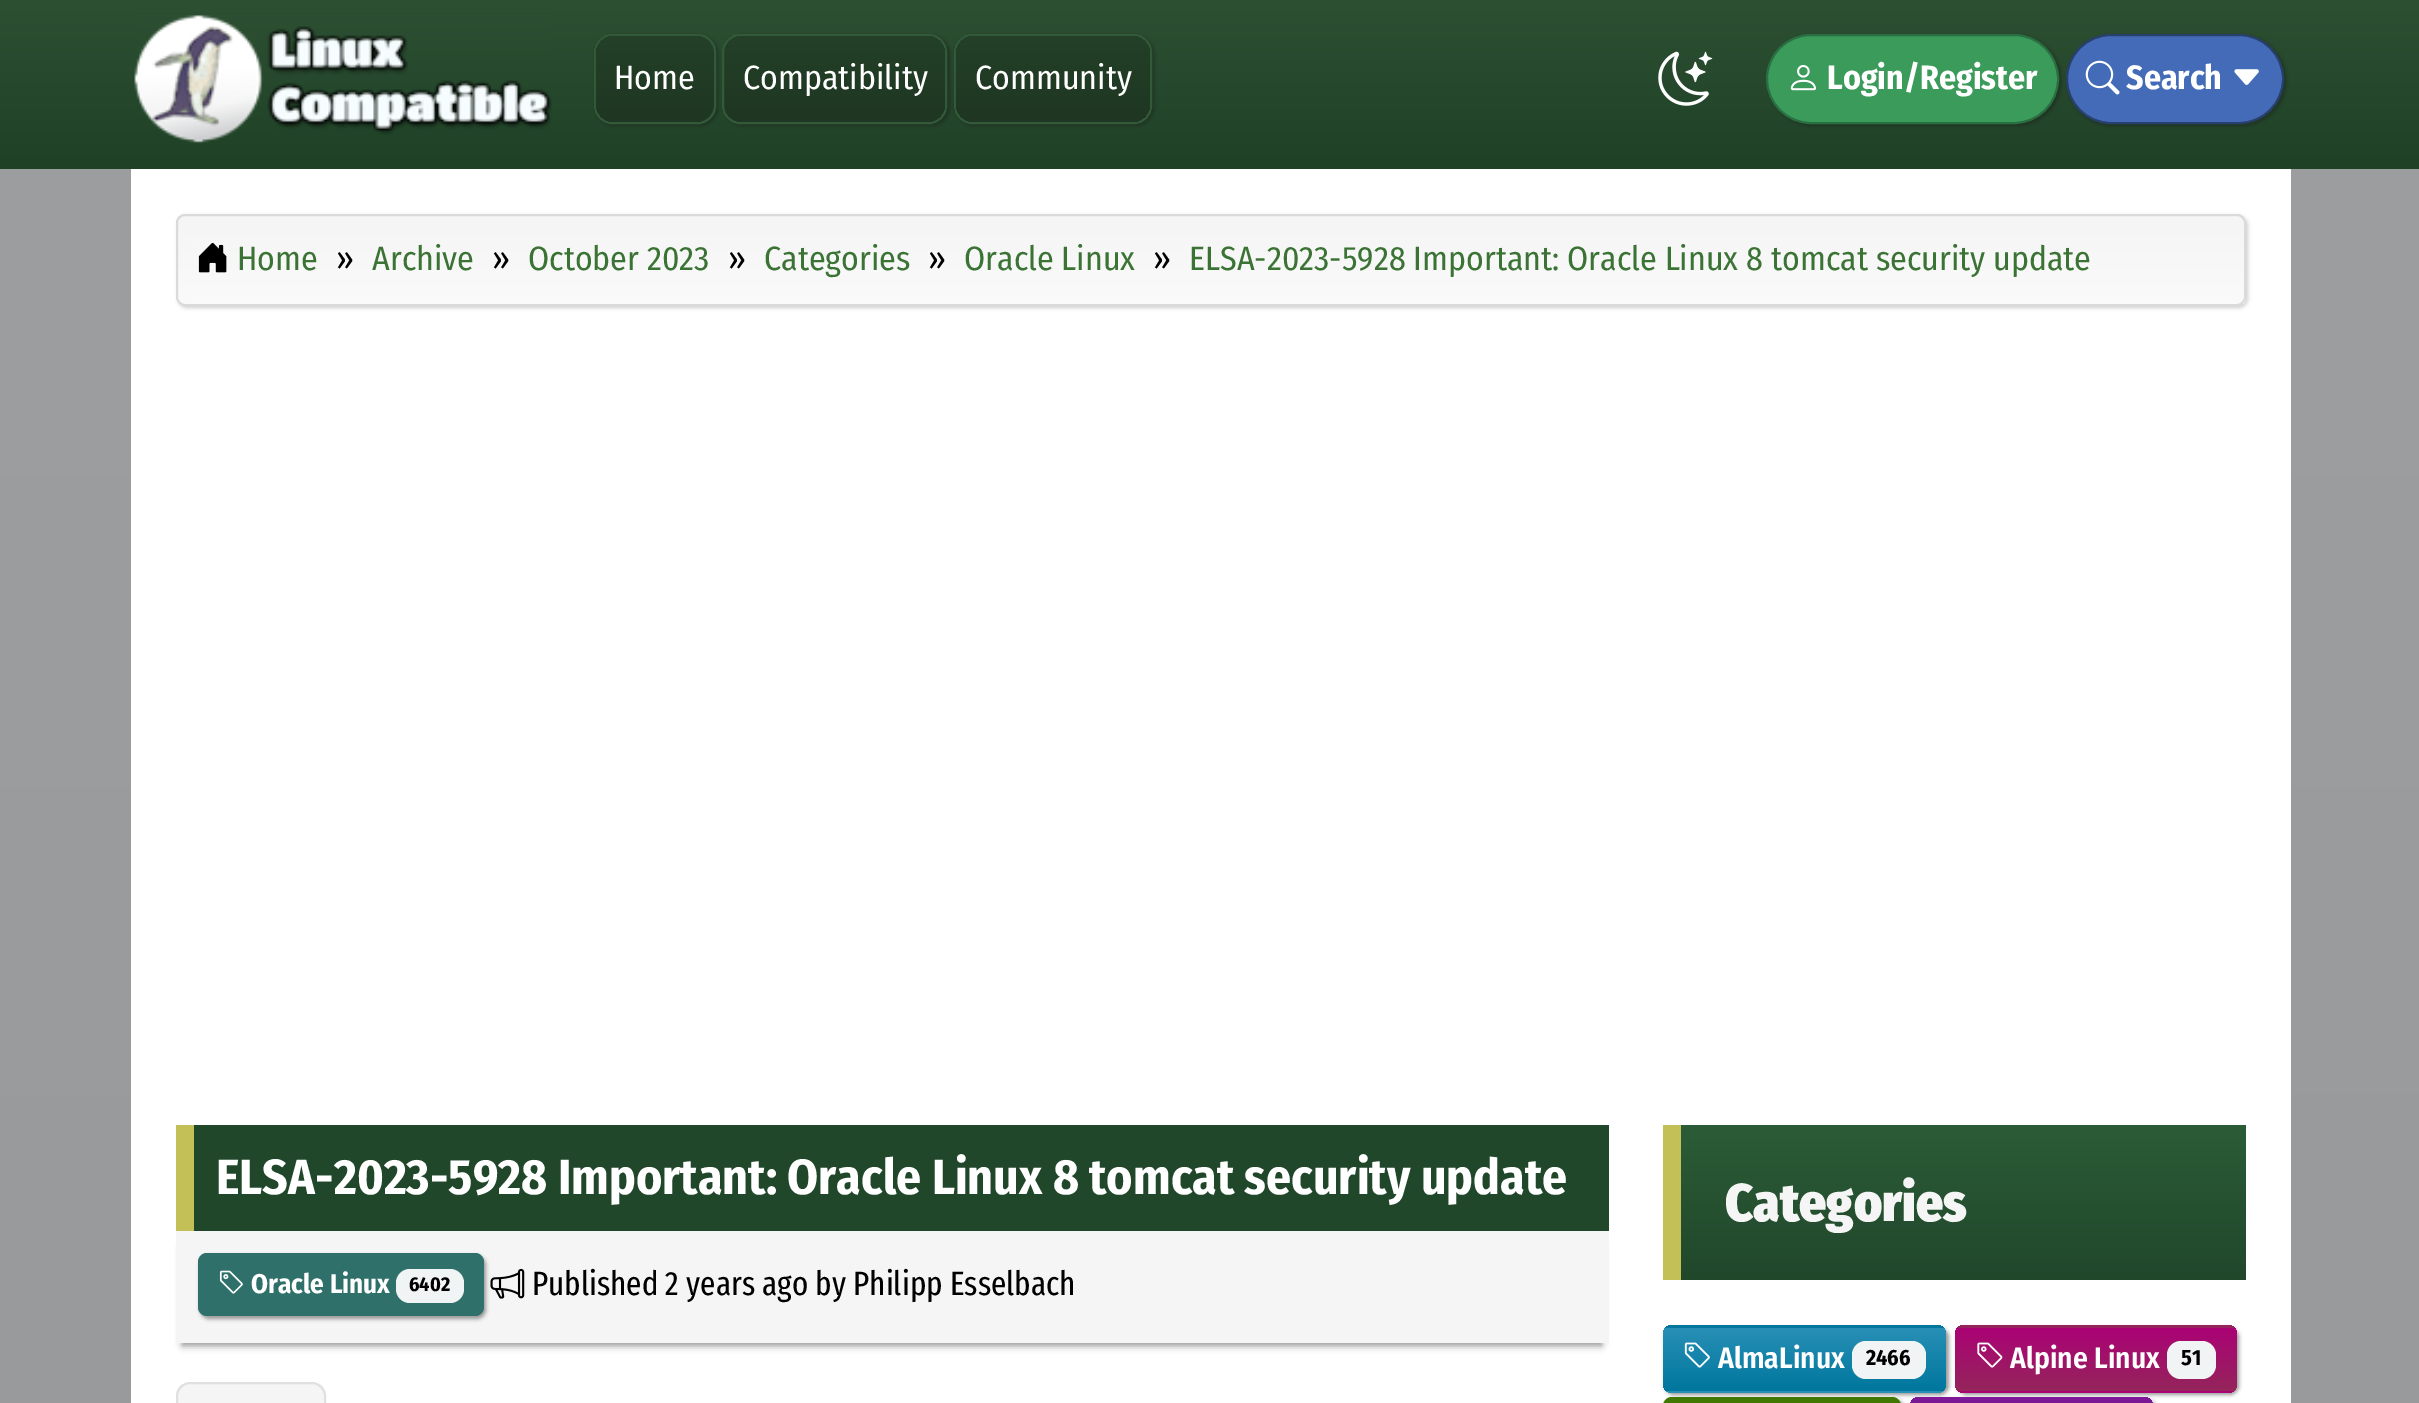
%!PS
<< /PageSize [2419 1403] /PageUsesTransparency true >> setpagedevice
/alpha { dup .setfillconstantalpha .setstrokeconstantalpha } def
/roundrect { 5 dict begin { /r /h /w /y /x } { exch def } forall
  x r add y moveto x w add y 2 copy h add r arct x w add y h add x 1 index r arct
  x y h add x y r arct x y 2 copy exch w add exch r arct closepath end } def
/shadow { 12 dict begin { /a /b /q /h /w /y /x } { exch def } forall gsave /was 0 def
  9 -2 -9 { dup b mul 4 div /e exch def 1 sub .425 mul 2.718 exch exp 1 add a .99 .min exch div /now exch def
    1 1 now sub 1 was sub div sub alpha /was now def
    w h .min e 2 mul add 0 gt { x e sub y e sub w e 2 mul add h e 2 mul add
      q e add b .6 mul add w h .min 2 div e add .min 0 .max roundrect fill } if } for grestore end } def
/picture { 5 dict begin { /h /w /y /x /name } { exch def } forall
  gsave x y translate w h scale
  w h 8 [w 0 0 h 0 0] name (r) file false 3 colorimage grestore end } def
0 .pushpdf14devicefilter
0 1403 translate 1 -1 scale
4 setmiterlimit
1 setgray
0 0 2419 1403 rectfill
gsave newpath 0 169 moveto 2419 169 lineto 2419 1403 lineto 0 1403 lineto closepath clip newpath
<< /ShadingType 2 /ColorSpace /DeviceRGB /Coords [1210 0 1211 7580] /Extend [true true] /Function << /FunctionType 2 /Domain [0 1] /C0 [0.62 0.624 0.631] /C1 [0.51 0.51 0.51] /N 1 >> >> shfill grestore
gsave newpath 0 0 moveto 2419 0 lineto 2419 169 lineto 0 169 lineto closepath clip newpath
<< /ShadingType 2 /ColorSpace /DeviceRGB /Coords [1211 0 1211 169] /Extend [true true] /Function << /FunctionType 2 /Domain [0 1] /C0 [0.176 0.31 0.196] /C1 [0.122 0.259 0.153] /N 1 >> >> shfill grestore
(img1.rgb) 134 15 418 128 picture
0.114 0.2 0.129 setrgbcolor
596 36 122 90 18 2 1 shadow
gsave
594 34 122 90 18 roundrect clip newpath
gsave newpath 594 36 moveto 716 36 lineto 716 122 lineto 594 122 lineto closepath clip newpath
<< /ShadingType 2 /ColorSpace /DeviceRGB /Coords [655 36 655 122] /Extend [true true] /Function << /FunctionType 2 /Domain [0 1] /C0 [0.141 0.251 0.157] /C1 [0.118 0.212 0.133] /N 1 >> >> shfill grestore
grestore
0.196 0.349 0.22 setrgbcolor
2 setlinewidth
595 35 120 88 17 roundrect stroke
gsave 596 36 117 86 18 roundrect clip newpath
<< /ShadingType 2 /ColorSpace /DeviceRGB /Coords [655 36 655 122] /Extend [true true] /Function << /FunctionType 2 /Domain [0 1] /C0 [0.141 0.251 0.157] /C1 [0.118 0.212 0.133] /N 1 >> >> shfill grestore
/FiraSansCondensed-Regular [33.75 0 0 -33.75 0 0] selectfont
1 setgray
614 89 moveto (Home) show
0.114 0.2 0.129 setrgbcolor
725 36 225 90 18 2 1 shadow
gsave
722 34 225 90 18 roundrect clip newpath
gsave newpath 722 36 moveto 947 36 lineto 947 122 lineto 722 122 lineto closepath clip newpath
<< /ShadingType 2 /ColorSpace /DeviceRGB /Coords [835 36 835 122] /Extend [true true] /Function << /FunctionType 2 /Domain [0 1] /C0 [0.141 0.251 0.157] /C1 [0.118 0.212 0.133] /N 1 >> >> shfill grestore
grestore
0.196 0.349 0.22 setrgbcolor
723 35 223 88 17 roundrect stroke
gsave 725 36 220 86 18 roundrect clip newpath
<< /ShadingType 2 /ColorSpace /DeviceRGB /Coords [835 36 835 122] /Extend [true true] /Function << /FunctionType 2 /Domain [0 1] /C0 [0.141 0.251 0.157] /C1 [0.118 0.212 0.133] /N 1 >> >> shfill grestore
1 setgray
743 89 moveto (Compatibility) show
0.114 0.2 0.129 setrgbcolor
956 36 198 90 18 2 1 shadow
gsave
954 34 198 90 18 roundrect clip newpath
gsave newpath 954 36 moveto 1152 36 lineto 1152 122 lineto 954 122 lineto closepath clip newpath
<< /ShadingType 2 /ColorSpace /DeviceRGB /Coords [1053 36 1053 122] /Extend [true true] /Function << /FunctionType 2 /Domain [0 1] /C0 [0.141 0.251 0.157] /C1 [0.118 0.212 0.133] /N 1 >> >> shfill grestore
grestore
0.196 0.349 0.22 setrgbcolor
955 35 196 88 17 roundrect stroke
gsave 956 36 194 86 18 roundrect clip newpath
<< /ShadingType 2 /ColorSpace /DeviceRGB /Coords [1053 36 1053 122] /Extend [true true] /Function << /FunctionType 2 /Domain [0 1] /C0 [0.141 0.251 0.157] /C1 [0.118 0.212 0.133] /N 1 >> >> shfill grestore
1 setgray
975 89 moveto (Community) show
(img2.rgb) 1658 51 55 55 picture
0.114 0.2 0.129 setrgbcolor
2068 36 218 90 45 2 1 shadow
0.263 0.42 0.718 setrgbcolor
2067 35 216 88 44 roundrect gsave fill grestore
0.157 0.251 0.427 setrgbcolor
stroke
0.114 0.2 0.129 setrgbcolor
1769 36 292 90 45 2 1 shadow
0.231 0.608 0.357 setrgbcolor
1767 35 291 88 44 roundrect gsave fill grestore
0.165 0.435 0.259 setrgbcolor
stroke
(img3.rgb) 1790 65 27 26 picture
/FiraSansCondensed-Bold [33.75 0 0 -33.75 0 0] selectfont
1 setgray
1827 89 moveto (Login/Register) show
(img4.rgb) 2085 60 35 35 picture
2126 89 moveto (Search) show
(img5.rgb) 2234 69 25 16 picture
131 169 2160 1234 rectfill
0.82 setgray
178 216 2070 92 9 2 1 shadow
gsave
176 214 2070 92 9 roundrect clip newpath
gsave newpath 176 216 moveto 2246 216 lineto 2246 304 lineto 176 304 lineto closepath clip newpath
<< /ShadingType 2 /ColorSpace /DeviceRGB /Coords [1211 216 1211 304] /Extend [true true] /Function << /FunctionType 2 /Domain [0 1] /C0 [0.961 0.961 0.961] /C1 [0.98 0.98 0.98] /N 1 >> >> shfill grestore
grestore
0.855 setgray
177 215 2068 90 8 roundrect stroke
(img6.rgb) 198 242 29 31 picture
/FiraSansCondensed-Regular [33.75 0 0 -33.75 0 0] selectfont
0.227 0.451 0.204 setrgbcolor
237 270 moveto (Home) show
0 setgray
336 270 moveto (») show
0.227 0.451 0.204 setrgbcolor
372 270 moveto (Archive) show
0 setgray
492 270 moveto (») show
0.227 0.451 0.204 setrgbcolor
528 270 moveto (October 2023) show
0 setgray
728 270 moveto (») show
0.227 0.451 0.204 setrgbcolor
764 270 moveto (Categories) show
0 setgray
928 270 moveto (») show
0.227 0.451 0.204 setrgbcolor
964 270 moveto (Oracle Linux) show
0 setgray
1153 270 moveto (») show
0.227 0.451 0.204 setrgbcolor
1189 270 moveto (ELSA-2023-5928 Important: Oracle Linux 8 tomcat security update) show
0.129 0.278 0.169 setrgbcolor
194 1125 1415 106 rectfill
0.769 0.753 0.345 setrgbcolor
176 1125 18 106 rectfill
/FiraSansCondensed-Bold [49.5 0 0 -49.5 0 0] selectfont
1 setgray
216 1194 moveto (ELSA-2023-5928 Important: Oracle Linux 8 tomcat security update) show
0.6 setgray
182 1247 1420 99 0 3.5 1 shadow
0.961 setgray
176 1231 1433 112 rectfill
0.592 setgray
200 1256 286 63 9 2 1 shadow
0.188 0.439 0.416 setrgbcolor
198 1253 286 63 9 roundrect fill
(img7.rgb) 219 1270 24 24 picture
/FiraSansCondensed-Bold [27 0 0 -27 0 0] selectfont
1 setgray
251 1293 moveto (Oracle Linux) show
0.941 0.957 0.957 setrgbcolor
396 1269 68 34 14 roundrect fill
/FiraSansCondensed-Bold [20 0 0 -20 0 0] selectfont
0 setgray
409 1291 moveto (6402) show
(img8.rgb) 490 1268 35 31 picture
/FiraSansExtraCondensed-Regular [33.75 0 0 -33.75 0 0] selectfont
532 1295 moveto (Published 2 years ago by Philipp Esselbach) show
gsave
newpath 190 1382 moveto 312 1382 lineto 319.5 1382 326 1388.5 326 1396 curveto 326 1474 lineto 176 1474 lineto 176 1396 lineto 176 1388.5 182.5 1382 190 1382 curveto closepath clip newpath
gsave newpath 176 1384 moveto 326 1384 lineto 326 1403 lineto 176 1403 lineto closepath clip newpath
<< /ShadingType 2 /ColorSpace /DeviceRGB /Coords [251 1384 251 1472] /Extend [true true] /Function << /FunctionType 2 /Domain [0 1] /C0 [0.961 0.961 0.961] /C1 [0.98 0.98 0.98] /N 1 >> >> shfill grestore
grestore
0.878 setgray
newpath 190 1383 moveto 312 1383 lineto 319 1383 325 1389 325 1396 curveto 325 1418 lineto 177 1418 lineto 177 1396 lineto 177 1389 183 1383 190 1383 curveto closepath stroke
gsave newpath 1681 1125 moveto 2246 1125 lineto 2246 1280 lineto 1681 1280 lineto closepath clip newpath
<< /ShadingType 2 /ColorSpace /DeviceRGB /Coords [1963 1125 1963 1280] /Extend [true true] /Function << /FunctionType 2 /Domain [0 1] /C0 [0.169 0.361 0.216] /C1 [0.129 0.278 0.169] /N 1 >> >> shfill grestore
0.769 0.753 0.345 setrgbcolor
1663 1125 18 155 rectfill
/FiraSansCondensed-Black [53 0 0 -53 0 0] selectfont
0.961 setgray
1725 1221 moveto (Categories) show
0.592 setgray
1665 1328 284 67 9 2 1 shadow
gsave
1663 1325 283 68 9 roundrect clip newpath
gsave newpath 1663 1325 moveto 1946 1325 lineto 1946 1328 lineto 1663 1328 lineto closepath clip newpath
<< /ShadingType 2 /ColorSpace /DeviceRGB /Coords [1805 1265 1805 1328] /Extend [true true] /Function << /FunctionType 2 /Domain [0 1] /C0 [0.157 0.561 0.71] /C1 [0 0.467 0.62] /N 1 >> >> shfill grestore
gsave newpath 1663 1328 moveto 1946 1328 lineto 1946 1391 lineto 1663 1391 lineto closepath clip newpath
<< /ShadingType 2 /ColorSpace /DeviceRGB /Coords [1805 1328 1805 1391] /Extend [true true] /Function << /FunctionType 2 /Domain [0 1] /C0 [0.157 0.561 0.71] /C1 [0 0.467 0.62] /N 1 >> >> shfill grestore
gsave newpath 1663 1391 moveto 1946 1391 lineto 1946 1393 lineto 1663 1393 lineto closepath clip newpath
<< /ShadingType 2 /ColorSpace /DeviceRGB /Coords [1805 1391 1805 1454] /Extend [true true] /Function << /FunctionType 2 /Domain [0 1] /C0 [0.157 0.561 0.71] /C1 [0 0.467 0.62] /N 1 >> >> shfill grestore
grestore
(img9.rgb) 1684 1342 26 26 picture
/FiraSansCondensed-SemiBold [29.5 0 0 -29.5 0 0] selectfont
1 setgray
1718 1368 moveto (AlmaLinux) show
0.941 0.957 0.957 setrgbcolor
1852 1341 74 38 14 roundrect fill
/FiraSansCondensed-Bold [22 0 0 -22 0 0] selectfont
0 setgray
1866 1365 moveto (2466) show
0.592 setgray
1958 1328 281 67 9 2 1 shadow
gsave
1955 1325 282 68 9 roundrect clip newpath
gsave newpath 1955 1325 moveto 2237 1325 lineto 2237 1328 lineto 1955 1328 lineto closepath clip newpath
<< /ShadingType 2 /ColorSpace /DeviceRGB /Coords [2096 1265 2096 1328] /Extend [true true] /Function << /FunctionType 2 /Domain [0 1] /C0 [0.671 0.008 0.459] /C1 [0.58 0.145 0.357] /N 1 >> >> shfill grestore
gsave newpath 1955 1328 moveto 2237 1328 lineto 2237 1391 lineto 1955 1391 lineto closepath clip newpath
<< /ShadingType 2 /ColorSpace /DeviceRGB /Coords [2096 1328 2096 1391] /Extend [true true] /Function << /FunctionType 2 /Domain [0 1] /C0 [0.671 0.008 0.459] /C1 [0.58 0.145 0.357] /N 1 >> >> shfill grestore
gsave newpath 1955 1391 moveto 2237 1391 lineto 2237 1393 lineto 1955 1393 lineto closepath clip newpath
<< /ShadingType 2 /ColorSpace /DeviceRGB /Coords [2096 1391 2096 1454] /Extend [true true] /Function << /FunctionType 2 /Domain [0 1] /C0 [0.671 0.008 0.459] /C1 [0.58 0.145 0.357] /N 1 >> >> shfill grestore
grestore
(img10.rgb) 1977 1342 26 26 picture
/FiraSansCondensed-SemiBold [29.5 0 0 -29.5 0 0] selectfont
1 setgray
2010 1368 moveto (Alpine Linux) show
0.941 0.957 0.957 setrgbcolor
2167 1341 49 38 14 roundrect fill
/FiraSansCondensed-Bold [22 0 0 -22 0 0] selectfont
0 setgray
2181 1365 moveto (51) show
0.592 setgray
1665 1400 239 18 9 2 1 shadow
0.255 0.471 0.008 setrgbcolor
1663 1397 238 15 9 roundrect fill
0.592 setgray
1913 1400 243 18 9 2 1 shadow
gsave
1910 1397 243 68 9 roundrect clip newpath
gsave newpath 1910 1397 moveto 2153 1397 lineto 2153 1400 lineto 1910 1400 lineto closepath clip newpath
<< /ShadingType 2 /ColorSpace /DeviceRGB /Coords [2032 1337 2032 1400] /Extend [true true] /Function << /FunctionType 2 /Domain [0 1] /C0 [0.475 0.09 0.58] /C1 [0.494 0.094 0.6] /N 1 >> >> shfill grestore
gsave newpath 1910 1400 moveto 2153 1400 lineto 2153 1403 lineto 1910 1403 lineto closepath clip newpath
<< /ShadingType 2 /ColorSpace /DeviceRGB /Coords [2032 1400 2032 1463] /Extend [true true] /Function << /FunctionType 2 /Domain [0 1] /C0 [0.475 0.09 0.58] /C1 [0.494 0.094 0.6] /N 1 >> >> shfill grestore
grestore
.poppdf14devicefilter showpage
